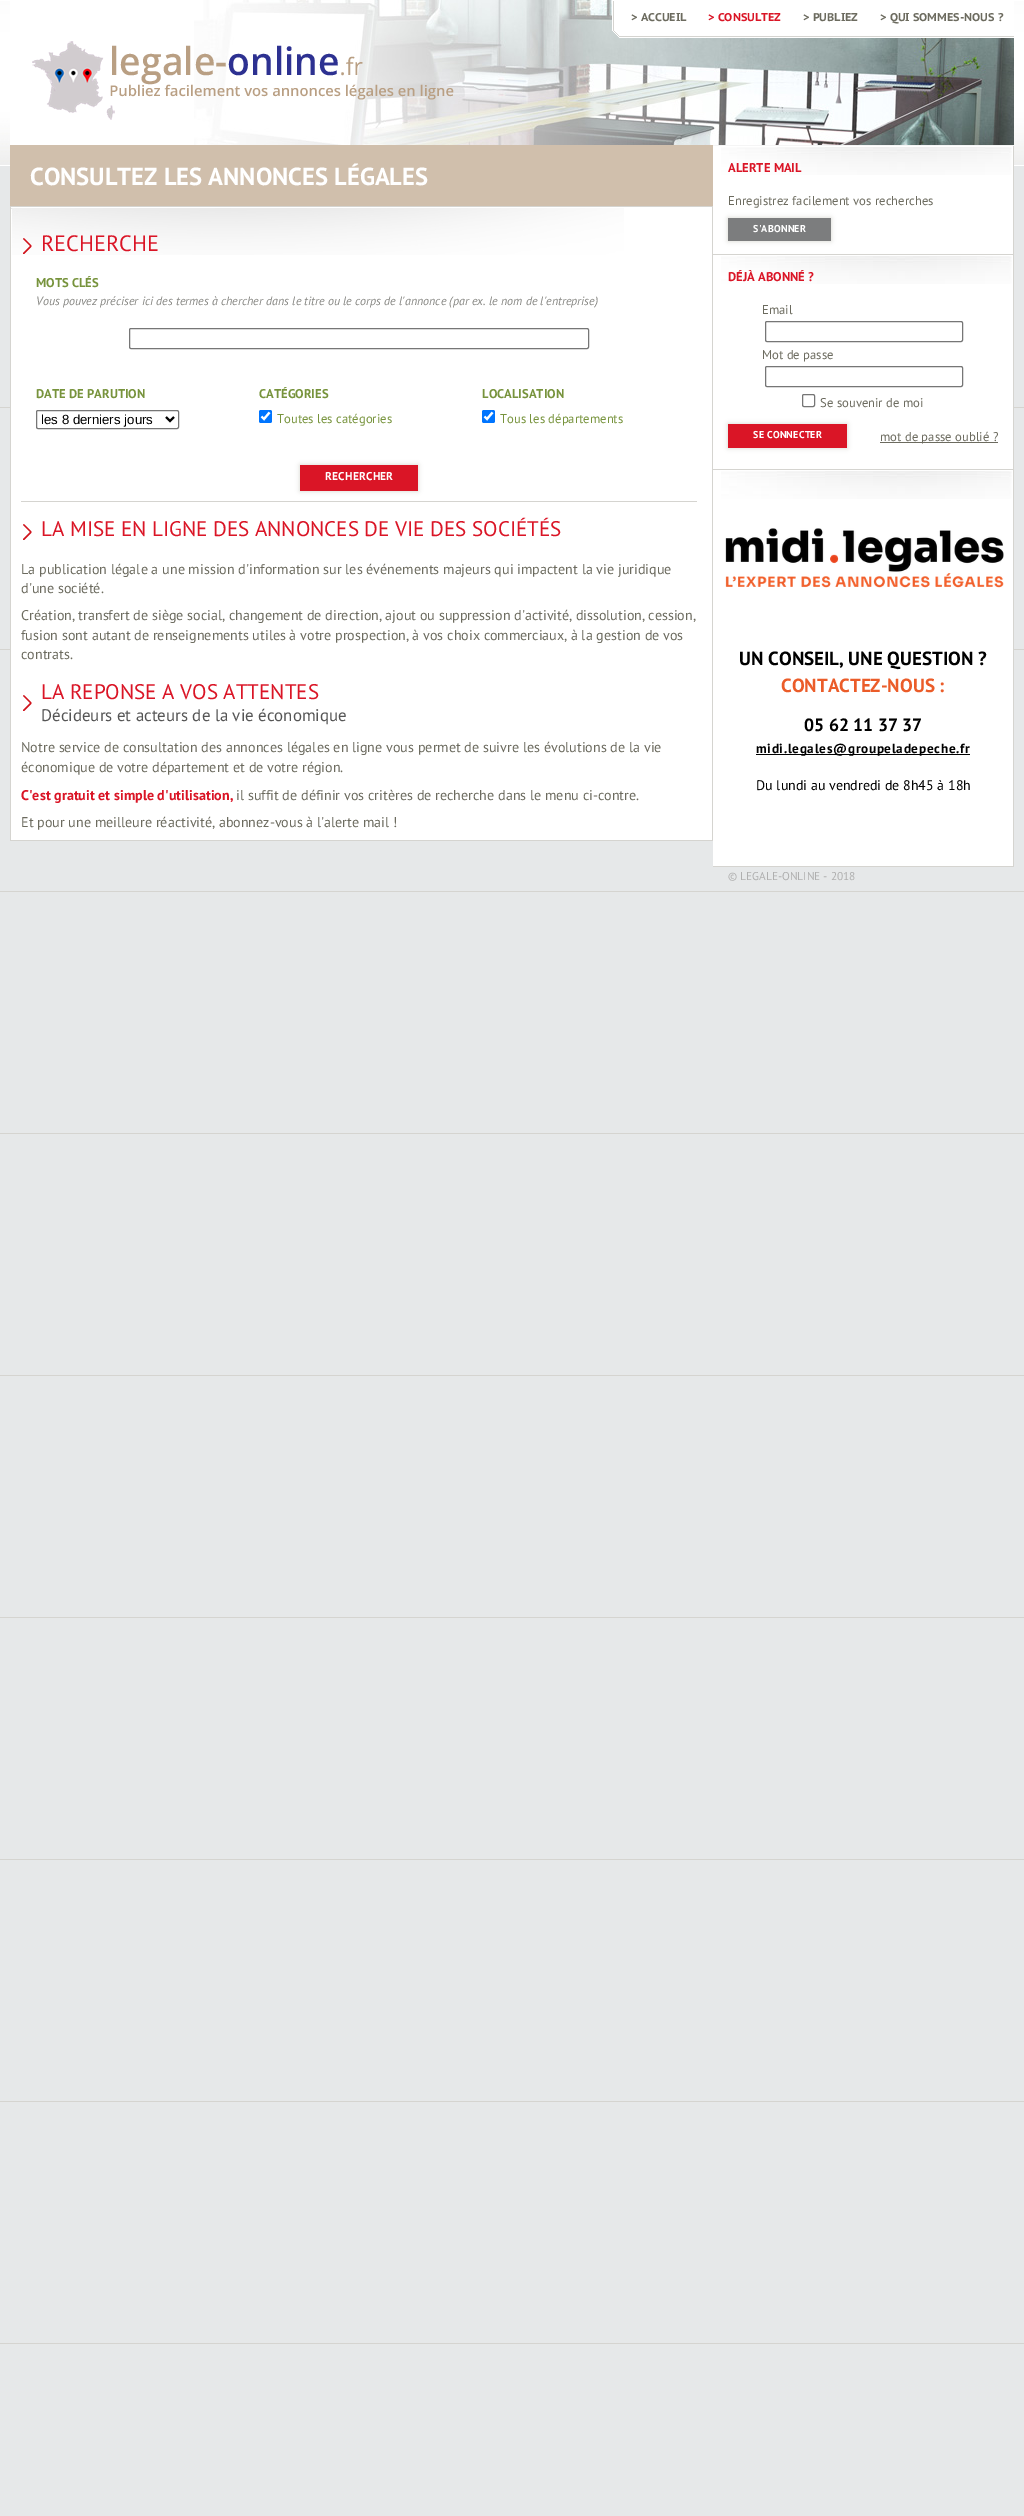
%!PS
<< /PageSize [1024 2516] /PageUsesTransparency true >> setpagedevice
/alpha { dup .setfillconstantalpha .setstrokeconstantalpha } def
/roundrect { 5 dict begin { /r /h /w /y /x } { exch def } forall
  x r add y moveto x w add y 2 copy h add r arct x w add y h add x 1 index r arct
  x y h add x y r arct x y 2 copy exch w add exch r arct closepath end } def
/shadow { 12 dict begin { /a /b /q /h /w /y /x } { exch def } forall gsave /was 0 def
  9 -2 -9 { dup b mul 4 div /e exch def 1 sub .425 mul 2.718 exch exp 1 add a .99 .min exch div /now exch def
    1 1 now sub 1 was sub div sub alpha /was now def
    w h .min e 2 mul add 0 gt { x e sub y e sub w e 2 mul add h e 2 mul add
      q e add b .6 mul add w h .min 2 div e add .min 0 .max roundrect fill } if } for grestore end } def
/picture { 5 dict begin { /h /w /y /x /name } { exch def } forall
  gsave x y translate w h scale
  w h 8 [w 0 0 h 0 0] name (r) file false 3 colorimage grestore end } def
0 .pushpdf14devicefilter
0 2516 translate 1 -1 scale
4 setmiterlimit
0.902 0.91 0.914 setrgbcolor
0 0 1024 2516 rectfill
(img1.rgb) 0 166 1024 2178 picture
(img2.rgb) 0 0 1024 166 picture
1 setgray
10 1 184 144 rectfill
(img3.rgb) 194 0 820 145 picture
(img4.rgb) 612 0 8 38 picture
620 0 394 38 rectfill
0.835 0.831 0.816 setrgbcolor
620 36 394 1 rectfill
/PTSansCaption-Bold [11.25 0 0 -11.25 0 0] selectfont
0.424 0.42 0.373 setrgbcolor
631 21 moveto (> ACCUEIL) show
0.855 0.082 0.149 setrgbcolor
708 21 moveto (> CONSULTEZ) show
0.424 0.42 0.373 setrgbcolor
803 21 moveto (> PUBLIEZ) show
880 21 moveto (> QUI SOMMES-NOUS ?) show
(img5.rgb) 32 41 422 79 picture
0.835 0.831 0.816 setrgbcolor
10 206 703 1 rectfill
0.816 0.749 0.675 setrgbcolor
10 145 703 61 rectfill
/PTSans-Bold [24.6 0 0 -24.6 0 0] selectfont
1 setgray
30 185 moveto (CONSULTEZ LES ANNONCES LÉGALES) show
11 207 701 633 rectfill
(img6.rgb) 11 208 613 47 picture
0.835 0.831 0.816 setrgbcolor
712 207 1 634 rectfill
10 840 703 1 rectfill
10 207 1 634 rectfill
(img7.rgb) 23 238 9 16 picture
/PTSans-Regular [22.25 0 0 -22.25 0 0] selectfont
0.855 0.082 0.149 setrgbcolor
41 251 moveto (RECHERCHE) show
/PTSans-Bold [12.7 0 0 -12.7 0 0] selectfont
0.467 0.576 0.235 setrgbcolor
36 287 moveto (MOTS CLÉS) show
/PTSans-Italic [12.05 0 0 -12.05 0 0] selectfont
0.529 0.529 0.514 setrgbcolor
36 305 moveto (Vous pouvez préciser ici des termes à chercher dans le titre ou le corps de l'annonce \(par ex. le nom de l'entreprise\)) show
0.463 setgray
129.5 328.5 459 20 1.5 roundrect stroke
/PTSans-Bold [12.7 0 0 -12.7 0 0] selectfont
0.467 0.576 0.235 setrgbcolor
36 398 moveto (DATE DE PARUTION) show
0.463 setgray
36.5 410.5 142 18 1.5 roundrect stroke
0 setgray
2 setlinewidth
newpath 166 417 moveto 170 421 lineto 174 417 lineto stroke
/LiberationSans-Regular [13.25 0 0 -13.25 0 0] selectfont
41 424 moveto (les 8 derniers jours) show
/PTSans-Bold [12.7 0 0 -12.7 0 0] selectfont
0.467 0.576 0.235 setrgbcolor
259 398 moveto (CATÉGORIES) show
0 0.459 1 setrgbcolor
259 410 13 13 2 roundrect fill
1 setgray
2.1 setlinewidth
newpath 261.5 416.5 moveto 264 419 lineto 269.5 412.5 lineto stroke
/PTSans-Regular [12.7 0 0 -12.7 0 0] selectfont
0.467 0.576 0.235 setrgbcolor
277 423 moveto (Toutes les catégories) show
/PTSans-Bold [12.7 0 0 -12.7 0 0] selectfont
482 398 moveto (LOCALISATION) show
0 0.459 1 setrgbcolor
482 410 13 13 2 roundrect fill
1 setgray
newpath 484.5 416.5 moveto 487 419 lineto 492.5 412.5 lineto stroke
/PTSans-Regular [12.7 0 0 -12.7 0 0] selectfont
0.467 0.576 0.235 setrgbcolor
500 423 moveto (Tous les départements) show
0.835 0.831 0.816 setrgbcolor
21 501 676 1 rectfill
300 465 118 26 0 2.5 1 shadow
0.855 0.082 0.149 setrgbcolor
300 465 118 26 rectfill
/PTSans-Bold [11.4 0 0 -11.4 0 0] selectfont
1 setgray
325 480 moveto 0.25 0 (RECHERCHER) ashow
(img8.rgb) 23 524 9 16 picture
/PTSans-Regular [21.1 0 0 -21.1 0 0] selectfont
0.855 0.082 0.149 setrgbcolor
41 536 moveto (LA MISE EN LIGNE DES ANNONCES DE VIE DES SOCIÉTÉS) show
/PTSans-Regular [14.1 0 0 -14.1 0 0] selectfont
0.424 0.42 0.373 setrgbcolor
21 574 moveto (La publication légale a une mission d'information sur les événements majeurs qui impactent la vie juridique) show
21 593 moveto (d'une société.) show
21 620 moveto (Création, transfert de siège social, changement de direction, ajout ou suppression d'activité, dissolution, cession,) show
21 640 moveto (fusion sont autant de renseignements utiles à votre prospection, à vos choix commerciaux, à la gestion de vos) show
21 659 moveto (contrats.) show
(img8.rgb) 23 695 9 16 picture
/PTSans-Regular [21.1 0 0 -21.1 0 0] selectfont
0.855 0.082 0.149 setrgbcolor
41 699 moveto (LA REPONSE A VOS ATTENTES) show
/PTSans-Regular [16.9 0 0 -16.9 0 0] selectfont
0.333 setgray
41 721 moveto (Décideurs et acteurs de la vie économique) show
/PTSans-Regular [14.1 0 0 -14.1 0 0] selectfont
0.424 0.42 0.373 setrgbcolor
21 752 moveto (Notre service de consultation des annonces légales en ligne vous permet de suivre les évolutions de la vie) show
21 772 moveto (économique de votre département et de votre région.) show
/PTSans-Bold [14.1 0 0 -14.1 0 0] selectfont
0.855 0.082 0.149 setrgbcolor
21 800 moveto (C'est gratuit et simple d'utilisation,) show
/PTSans-Regular [14.1 0 0 -14.1 0 0] selectfont
0.424 0.42 0.373 setrgbcolor
236 800 moveto (il suffit de définir vos critères de recherche dans le menu ci-contre.) show
21 827 moveto (Et pour une meilleure réactivité, abonnez-vous à l'alerte mail !) show
1 setgray
713 146 300 108 rectfill
(img9.rgb) 721 147 291 28 picture
0.835 0.831 0.816 setrgbcolor
1013 146 1 721 rectfill
713 254 301 1 rectfill
/PTSans-Bold [12.7 0 0 -12.7 0 0] selectfont
0.855 0.082 0.149 setrgbcolor
728 172 moveto (ALERTE MAIL) show
/PTSans-Regular [12.7 0 0 -12.7 0 0] selectfont
0.424 0.42 0.373 setrgbcolor
728 205 moveto (Enregistrez facilement vos recherches) show
0.835 0.831 0.816 setrgbcolor
728 218 103 23 0 2.5 1 shadow
0.486 0.49 0.494 setrgbcolor
728 218 103 23 rectfill
/PTSans-Bold [10 0 0 -10 0 0] selectfont
1 setgray
753 232 moveto 0.25 0 (S'ABONNER) ashow
713 255 300 214 rectfill
(img9.rgb) 721 256 291 28 picture
0.835 0.831 0.816 setrgbcolor
713 469 301 1 rectfill
/PTSans-Bold [12.7 0 0 -12.7 0 0] selectfont
0.855 0.082 0.149 setrgbcolor
728 281 moveto (DÉJÀ ABONNÉ ?) show
/PTSans-Regular [12.7 0 0 -12.7 0 0] selectfont
0.424 0.42 0.373 setrgbcolor
762 314 moveto (Email) show
0.463 setgray
1 setlinewidth
765.5 321.5 197 20 1.5 roundrect stroke
0.424 0.42 0.373 setrgbcolor
762 359 moveto (Mot de passe) show
0.463 setgray
765.5 366.5 197 20 1.5 roundrect stroke
802.5 394.5 12 12 1.5 roundrect stroke
0.424 0.42 0.373 setrgbcolor
820 407 moveto (Se souvenir de moi) show
0.835 0.831 0.816 setrgbcolor
728 424 119 24 0 2.5 1 shadow
0.855 0.082 0.149 setrgbcolor
728 424 119 24 rectfill
/PTSans-Bold [10 0 0 -10 0 0] selectfont
1 setgray
753 438 moveto 0.25 0 (SE CONNECTER) ashow
0.424 0.42 0.373 setrgbcolor
880 442 118 1 rectfill
/PTSans-Regular [12.7 0 0 -12.7 0 0] selectfont
880 441 moveto (mot de passe oublié ?) show
1 setgray
713 470 300 396 rectfill
(img9.rgb) 721 471 291 28 picture
0.835 0.831 0.816 setrgbcolor
713 866 301 1 rectfill
(img10.rgb) 725 528 279 60 picture
/PTSans-Bold [19 0 0 -19 0 0] selectfont
0 setgray
739 665 moveto (UN CONSEIL, UNE QUESTION ?) show
0.922 0.361 0.161 setrgbcolor
781 692 moveto (CONTACTEZ-NOUS :) show
/PTSans-Bold [17.75 0 0 -17.75 0 0] selectfont
0 setgray
804 731 moveto (05 62 11 37 37) show
756 754 214 1 rectfill
/PTSans-Bold [13.25 0 0 -13.25 0 0] selectfont
756 753 moveto 0.7 0 (midi.legales@groupeladepeche.fr) ashow
/PTSans-Regular [14 0 0 -14 0 0] selectfont
756 790 moveto (Du lundi au vendredi de 8h45 à 18h) show
/PTSans-Regular [11.4 0 0 -11.4 0 0] selectfont
0.686 setgray
728 880 moveto (© LEGALE-ONLINE - 2018) show
.poppdf14devicefilter showpage
